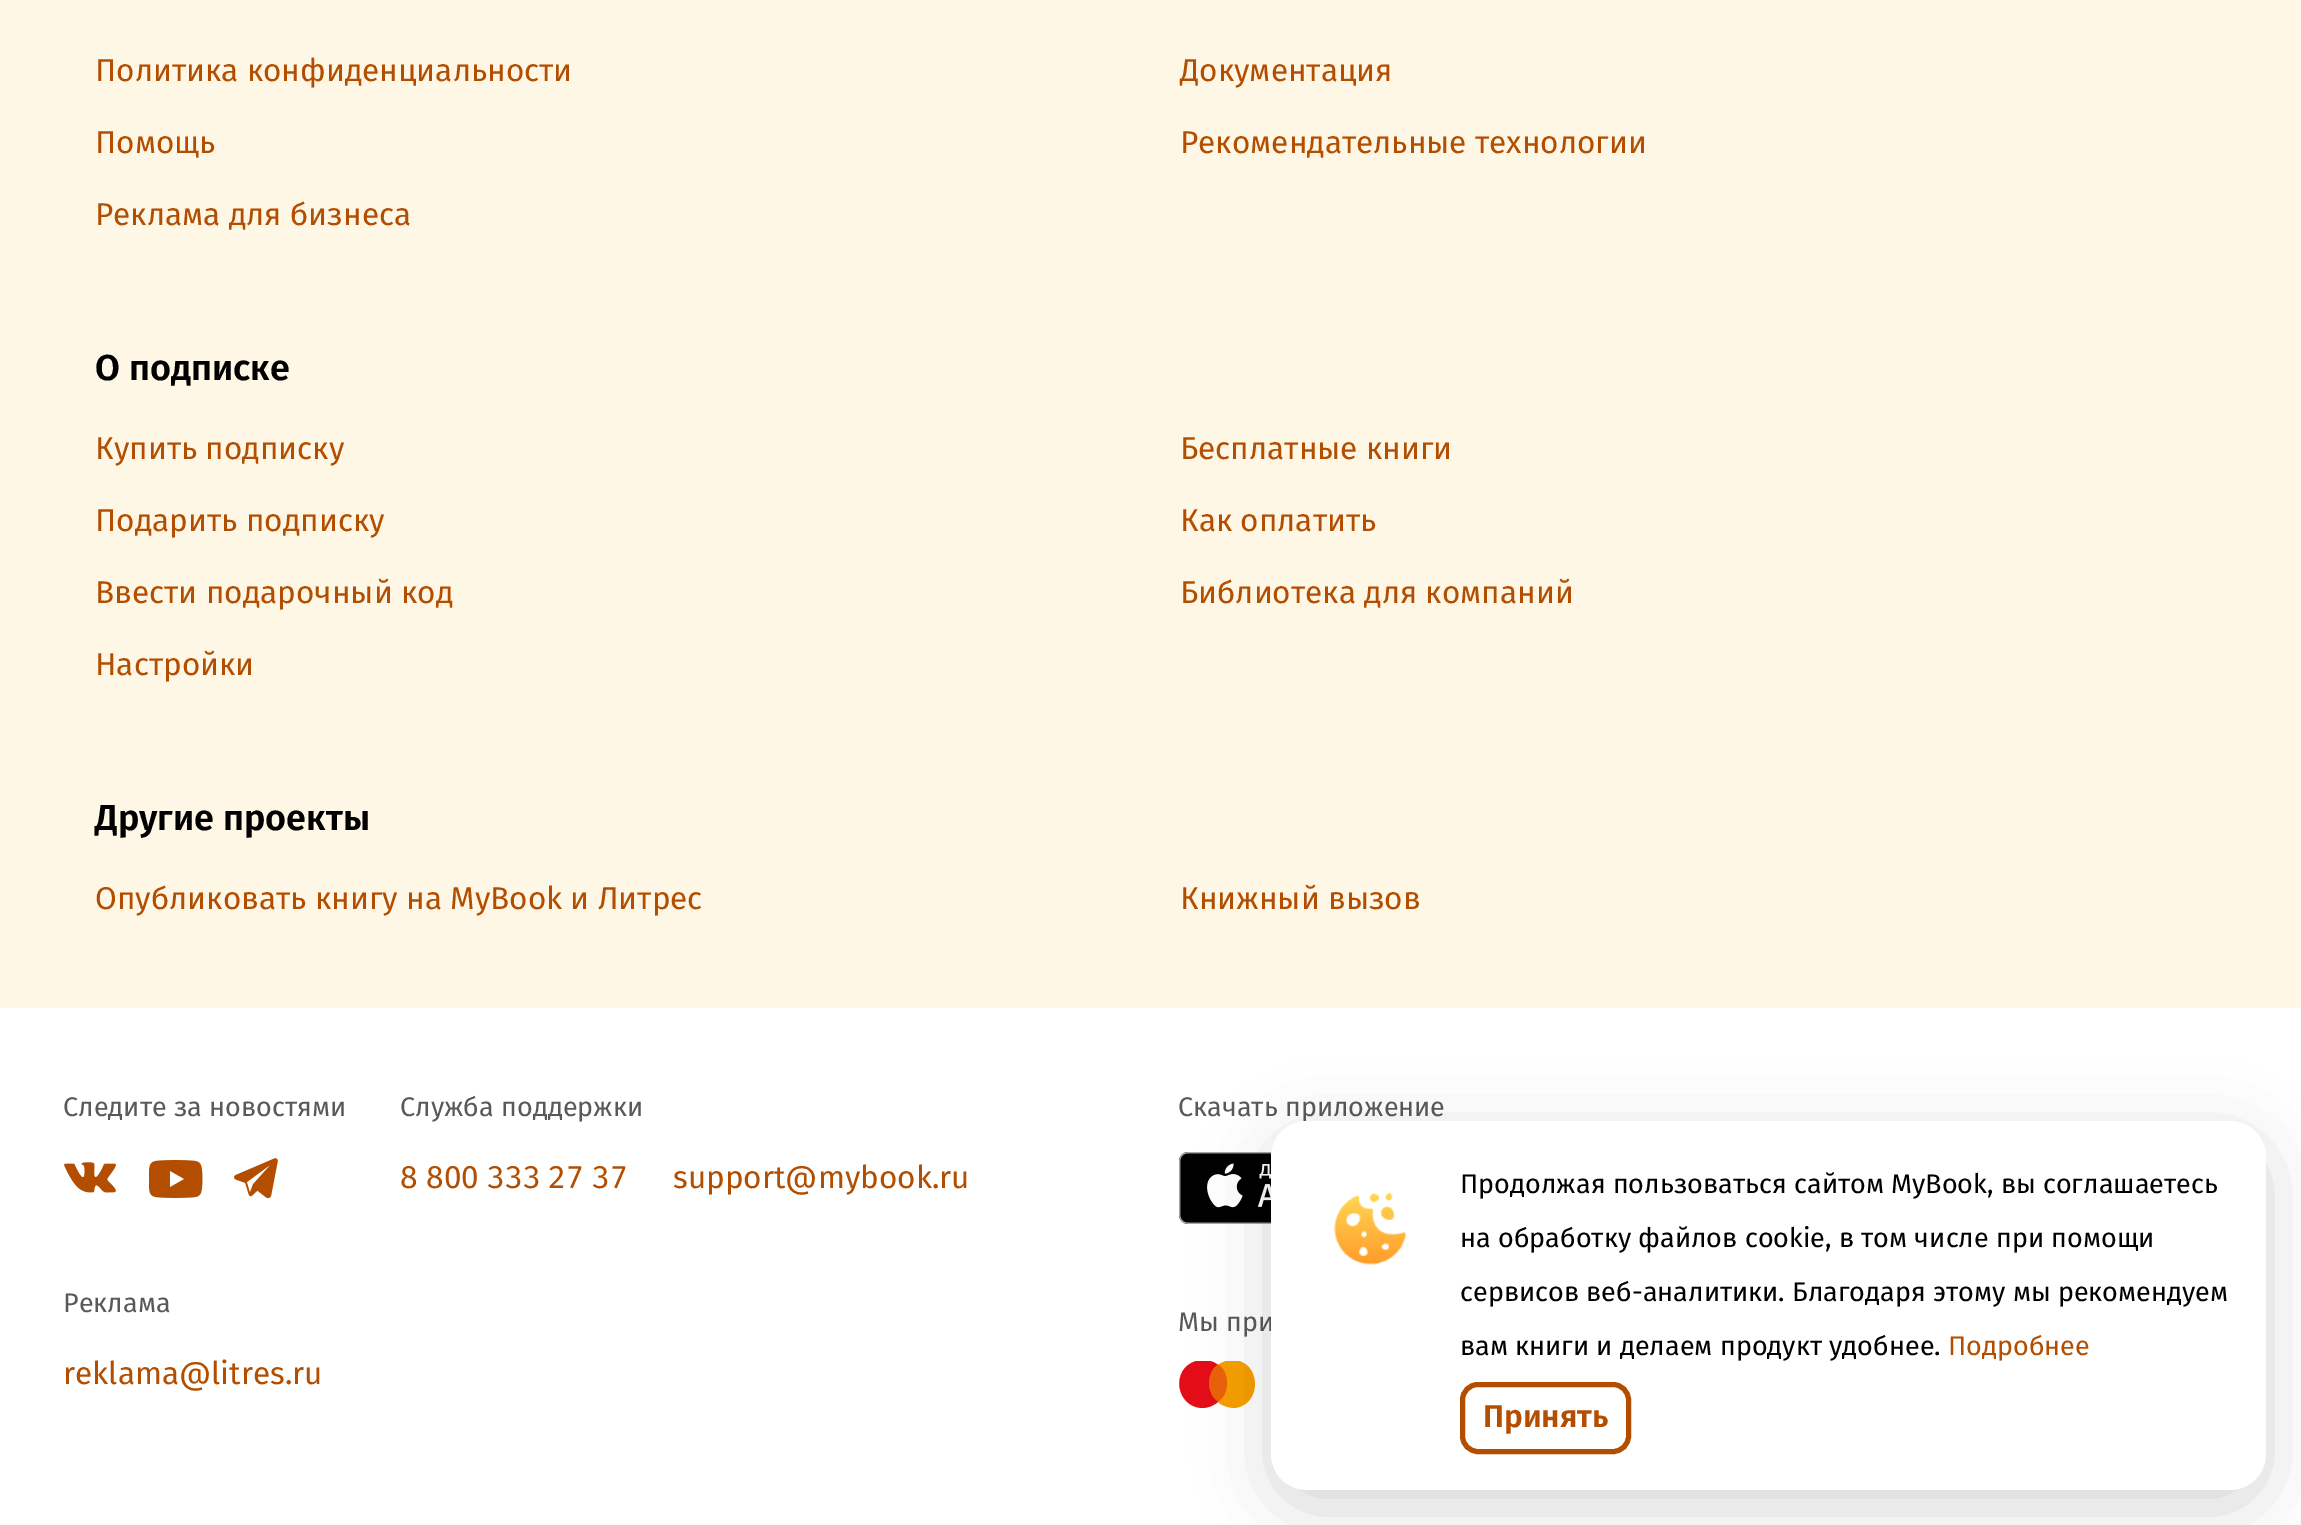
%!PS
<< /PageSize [2301 1525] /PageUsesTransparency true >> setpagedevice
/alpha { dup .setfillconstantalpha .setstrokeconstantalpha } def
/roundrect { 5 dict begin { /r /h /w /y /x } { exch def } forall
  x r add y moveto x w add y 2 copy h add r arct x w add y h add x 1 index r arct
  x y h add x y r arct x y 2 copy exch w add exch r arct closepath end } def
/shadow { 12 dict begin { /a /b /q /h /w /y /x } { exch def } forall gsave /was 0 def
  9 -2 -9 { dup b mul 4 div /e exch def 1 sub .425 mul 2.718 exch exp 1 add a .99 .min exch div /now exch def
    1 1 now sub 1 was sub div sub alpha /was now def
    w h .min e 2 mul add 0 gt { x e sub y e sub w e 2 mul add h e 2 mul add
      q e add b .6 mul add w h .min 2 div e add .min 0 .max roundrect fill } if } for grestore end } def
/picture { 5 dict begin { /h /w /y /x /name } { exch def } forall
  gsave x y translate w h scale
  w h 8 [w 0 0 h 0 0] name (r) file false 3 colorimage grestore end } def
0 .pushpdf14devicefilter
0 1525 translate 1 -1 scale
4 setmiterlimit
1 0.969 0.902 setrgbcolor
0 0 2301 1525 rectfill
/FiraSans-Regular [31.5 0 0 -31.5 0 0] selectfont
0.702 0.302 0 setrgbcolor
95 81 moveto (Политика конфиденциальности) show
1180 81 moveto (Документация) show
95 153 moveto (Помощь) show
1180 153 moveto (Рекомендательные технологии) show
95 225 moveto (Реклама для бизнеса) show
/FiraSans-SemiBold [36 0 0 -36 0 0] selectfont
0 setgray
95 380 moveto (О подписке) show
/FiraSans-Regular [31.5 0 0 -31.5 0 0] selectfont
0.702 0.302 0 setrgbcolor
95 459 moveto (Купить подписку) show
1180 459 moveto (Бесплатные книги) show
95 531 moveto (Подарить подписку) show
1180 531 moveto (Как оплатить) show
95 603 moveto (Ввести подарочный код) show
1180 603 moveto (Библиотека для компаний) show
95 675 moveto (Настройки) show
/FiraSans-SemiBold [36 0 0 -36 0 0] selectfont
0 setgray
95 830 moveto (Другие проекты) show
/FiraSans-Regular [31.5 0 0 -31.5 0 0] selectfont
0.702 0.302 0 setrgbcolor
95 909 moveto (Опубликовать книгу на MyBook и Литрес) show
1180 909 moveto (Книжный вызов) show
1 setgray
0 1008 2301 517 rectfill
/FiraSans-Regular [27 0 0 -27 0 0] selectfont
0.349 setgray
63 1116 moveto (Следите за новостями) show
(img1.rgb) 64 1162 52 31 picture
(img2.rgb) 149 1160 54 38 picture
(img3.rgb) 234 1158 44 41 picture
400 1116 moveto (Служба поддержки) show
/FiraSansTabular-Regular [31.5 0 0 -31.5 0 0] selectfont
0.702 0.302 0 setrgbcolor
400 1188 moveto (8 800 333 27 37) show
/FiraSans-Regular [31.5 0 0 -31.5 0 0] selectfont
673 1188 moveto (support@mybook.ru) show
/FiraSans-Regular [27 0 0 -27 0 0] selectfont
0.349 setgray
63 1312 moveto (Реклама) show
/FiraSans-Regular [31.5 0 0 -31.5 0 0] selectfont
0.702 0.302 0 setrgbcolor
63 1384 moveto (reklama@litres.ru) show
/FiraSans-Regular [27 0 0 -27 0 0] selectfont
0.349 setgray
1178 1116 moveto (Скачать приложение) show
(img4.rgb) 1179 1152 93 72 picture
1178 1331 moveto (Мы при) show
gsave
1179 1361 76 47 rectclip
0.89 0.051 0.09 setrgbcolor
newpath 1218 1365 moveto 1212 1360 1203 1359 1196 1361 curveto 1170 1369 1176 1407 1202 1408 curveto 1208 1408 1213 1406 1218 1402 curveto closepath fill
0.965 0.624 0 setrgbcolor
newpath 1232 1360 moveto 1227 1360 1222 1362 1218 1365 curveto 1218 1402 lineto 1222 1406 1229 1408 1235 1408 curveto 1263 1404 1261 1360 1232 1360 curveto closepath fill
grestore
0.922 0.38 0.039 setrgbcolor
newpath 1218 1401.5 moveto 1230 1394.5 1230 1371.5 1218 1364.5 curveto 1206 1372.5 1206 1393.5 1218 1401.5 curveto closepath fill
0 setgray
1271 1139 995 369 36 36 0.16 shadow
1 setgray
1271 1121 995 369 36 roundrect fill
(img5.rgb) 1334 1192 73 73 picture
0 setgray
1460 1193 moveto (Продолжая пользоваться сайтом MyBook, вы соглашаетесь) show
1460 1247 moveto (на обработку файлов cookie, в том числе при помощи) show
1460 1301 moveto (сервисов веб-аналитики. Благодаря этому мы рекомендуем) show
1460 1355 moveto (вам книги и делаем продукт удобнее.) show
0.702 0.302 0 setrgbcolor
1948 1355 moveto (Подробнее) show
5 setlinewidth
1462.5 1384.5 166 67 15.5 roundrect stroke
/FiraSans-SemiBold [31.5 0 0 -31.5 0 0] selectfont
1483 1427 moveto (Принять) show
.poppdf14devicefilter showpage
